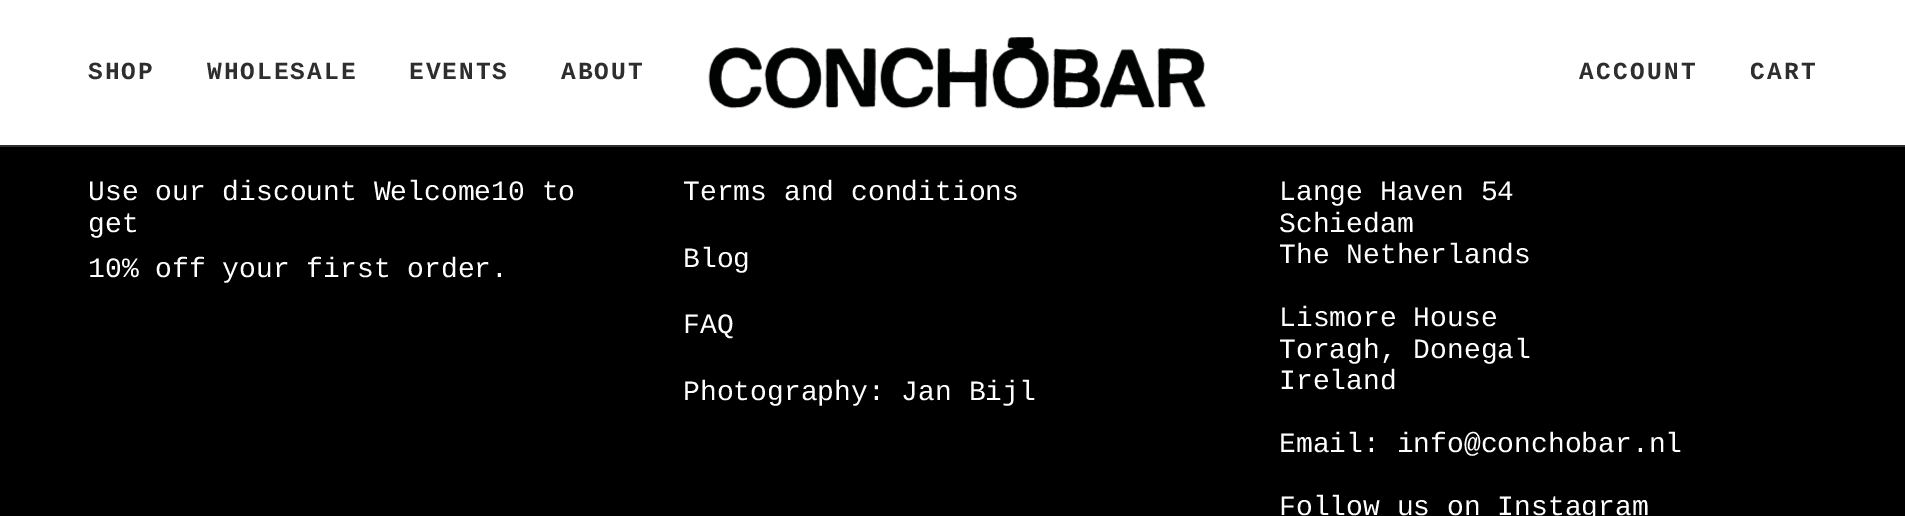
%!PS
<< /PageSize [1905 516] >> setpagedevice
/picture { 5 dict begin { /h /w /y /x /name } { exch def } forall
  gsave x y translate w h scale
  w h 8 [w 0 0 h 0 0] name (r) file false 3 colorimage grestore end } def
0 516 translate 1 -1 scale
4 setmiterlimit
0 setgray
0 0 1905 516 rectfill
1 setgray
0 0 1905 145 rectfill
/LiberationMono-Bold [24.5 0 0 -24.5 0 0] selectfont
0.18 setgray
88 79 moveto 2 0 (SHOP) ashow
207 79 moveto 2 0 (WHOLESALE) ashow
409 79 moveto 2 0 (EVENTS) ashow
561 79 moveto 2 0 (ABOUT) ashow
(img1.rgb) 708 36 498 73 picture
1579 79 moveto 2.25 0 (ACCOUNT) ashow
1750 79 moveto 2.25 0 (CART) ashow
0 145 1905 2 rectfill
/LiberationMono-Regular [28 0 0 -28 0 0] selectfont
1 setgray
88 200 moveto (Use our discount Welcome10 to) show
88 232 moveto (get) show
88 277 moveto (10% off your first order.) show
683 200 moveto (Terms and conditions) show
683 267 moveto (Blog) show
683 333 moveto (FAQ) show
683 400 moveto (Photography: Jan Bijl) show
1279 200 moveto (Lange Haven 54) show
1279 232 moveto (Schiedam) show
1279 263 moveto (The Netherlands) show
1279 326 moveto (Lismore House) show
1279 358 moveto (Toragh, Donegal) show
1279 389 moveto (Ireland) show
1279 452 moveto (Email: info@conchobar.nl) show
1279 515 moveto (Follow us on Instagram) show
showpage
